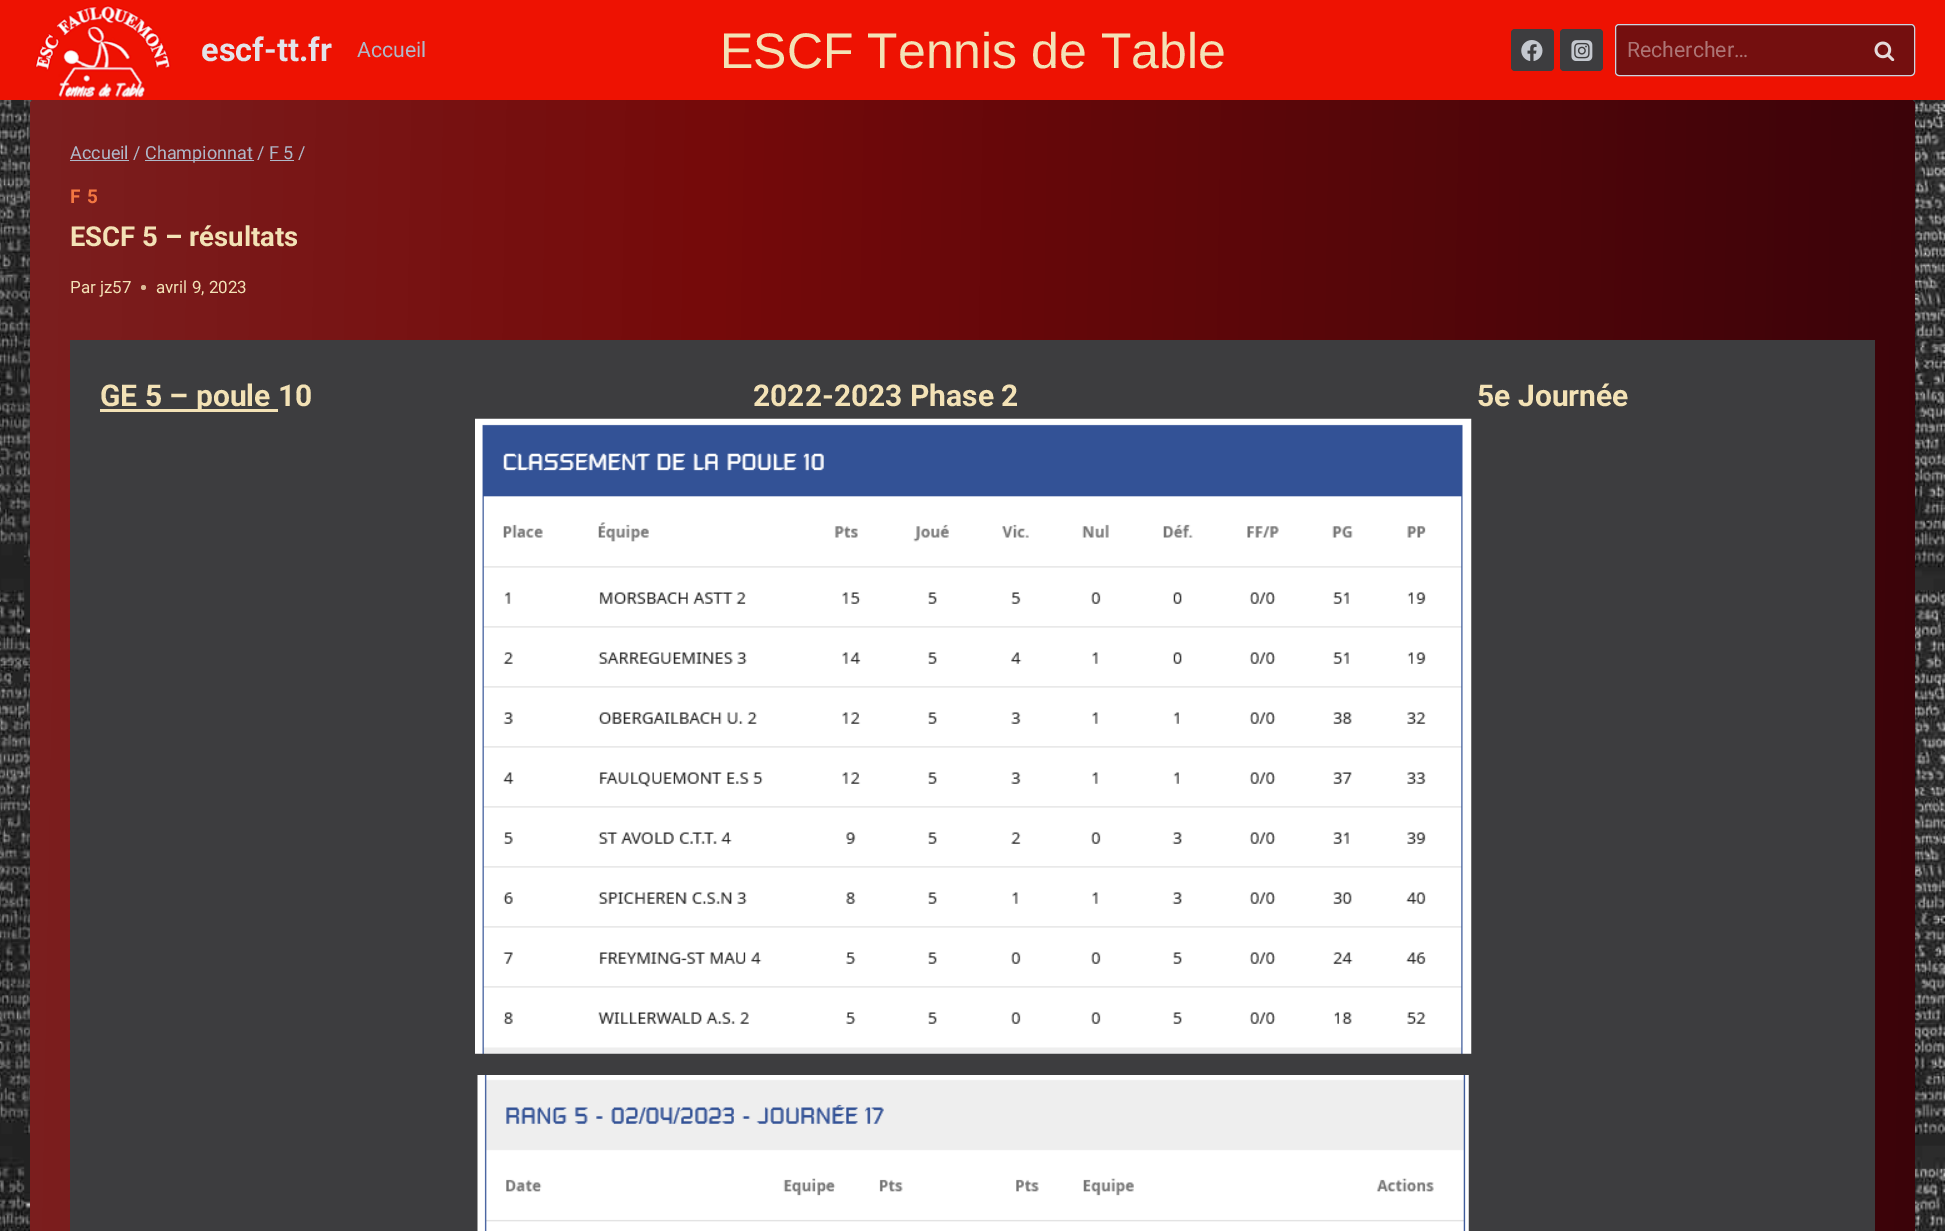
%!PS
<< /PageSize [1945 1231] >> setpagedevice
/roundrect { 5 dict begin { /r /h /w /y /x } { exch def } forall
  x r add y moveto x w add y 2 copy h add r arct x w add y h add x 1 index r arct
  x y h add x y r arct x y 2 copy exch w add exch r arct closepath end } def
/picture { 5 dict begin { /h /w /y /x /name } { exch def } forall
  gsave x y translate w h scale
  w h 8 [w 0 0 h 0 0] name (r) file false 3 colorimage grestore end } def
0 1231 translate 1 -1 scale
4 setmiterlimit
1 setgray
0 0 1945 1231 rectfill
(img1.rgb) 0 100 1945 1131 picture
0.933 0.071 0.008 setrgbcolor
0 0 1945 100 rectfill
(img2.rgb) 35 5 136 94 picture
/Roboto-Bold [32.5 0 0 -32.5 0 0] selectfont
0.89 0.89 0.914 setrgbcolor
201 61 moveto (escf-tt.fr) show
/Roboto-Regular [21.25 0 0 -21.25 0 0] selectfont
0.69 0.725 0.788 setrgbcolor
357 57 moveto (Accueil) show
/LiberationSans-Regular [50 0 0 -50 0 0] selectfont
0.953 0.886 0.714 setrgbcolor
720 68 moveto (ESCF Tennis de Table) show
0.239 0.239 0.247 setrgbcolor
1511 29 43 42 4 roundrect fill
(img3.rgb) 1521 40 22 21 picture
1560 29 43 42 4 roundrect fill
(img4.rgb) 1571 40 22 21 picture
0.455 0.059 0.059 setrgbcolor
1615.5 24.5 299 51 3.5 roundrect gsave fill grestore
0.796 0.835 0.878 setrgbcolor
stroke
/Roboto-Regular [21.25 0 0 -21.25 0 0] selectfont
0.678 0.459 0.459 setrgbcolor
1627 57 moveto (Rechercher…) show
(img5.rgb) 1874 41 21 20 picture
gsave 30 100 1885 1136 5 roundrect clip newpath
<< /ShadingType 2 /ColorSpace /DeviceRGB /Coords [18 801 1927 835] /Extend [true true] /Function << /FunctionType 3 /Domain [0 1] /Functions [<< /FunctionType 2 /Domain [0 1] /C0 [0.486 0.122 0.122] /C1 [0.459 0.039 0.039] /N 1 >> << /FunctionType 2 /Domain [0 1] /C0 [0.459 0.039 0.039] /C1 [0.231 0.012 0.035] /N 1 >>] /Bounds [0.36] /Encode [0 1 0 1] >> >> shfill grestore
0.69 0.725 0.788 setrgbcolor
70 160 59 1 rectfill
/Roboto-Regular [18 0 0 -18 0 0] selectfont
70 159 moveto (Accueil /) show
145 160 109 1 rectfill
145 159 moveto (Championnat / F 5 /) show
270 160 24 1 rectfill
/Roboto-Bold [19 0 0 -19 0 0] selectfont
0.953 0.467 0.259 setrgbcolor
70 203 moveto 1 0 (F 5) ashow
/Roboto-Bold [27.5 0 0 -27.5 0 0] selectfont
0.953 0.886 0.714 setrgbcolor
70 246 moveto (ESCF 5 – résultats) show
/Roboto-Regular [17 0 0 -17 0 0] selectfont
70 293 moveto (Par jz57) show
0.859 0.729 0.592 setrgbcolor
newpath 143.5 287.5 2.5 0 360 arc closepath fill
0.953 0.886 0.714 setrgbcolor
156 293 moveto (avril 9, 2023) show
0.239 0.239 0.247 setrgbcolor
70 340 1805 891 rectfill
0.953 0.886 0.714 setrgbcolor
100 409 178 3 rectfill
/Roboto-Bold [30 0 0 -30 0 0] selectfont
100 406 moveto (GE 5 – poule 10) show
753 406 moveto (2022-2023 Phase 2) show
1477 406 moveto (5e Journée) show
(img6.rgb) 475 418 997 636 picture
(img7.rgb) 477 1075 992 156 picture
showpage
